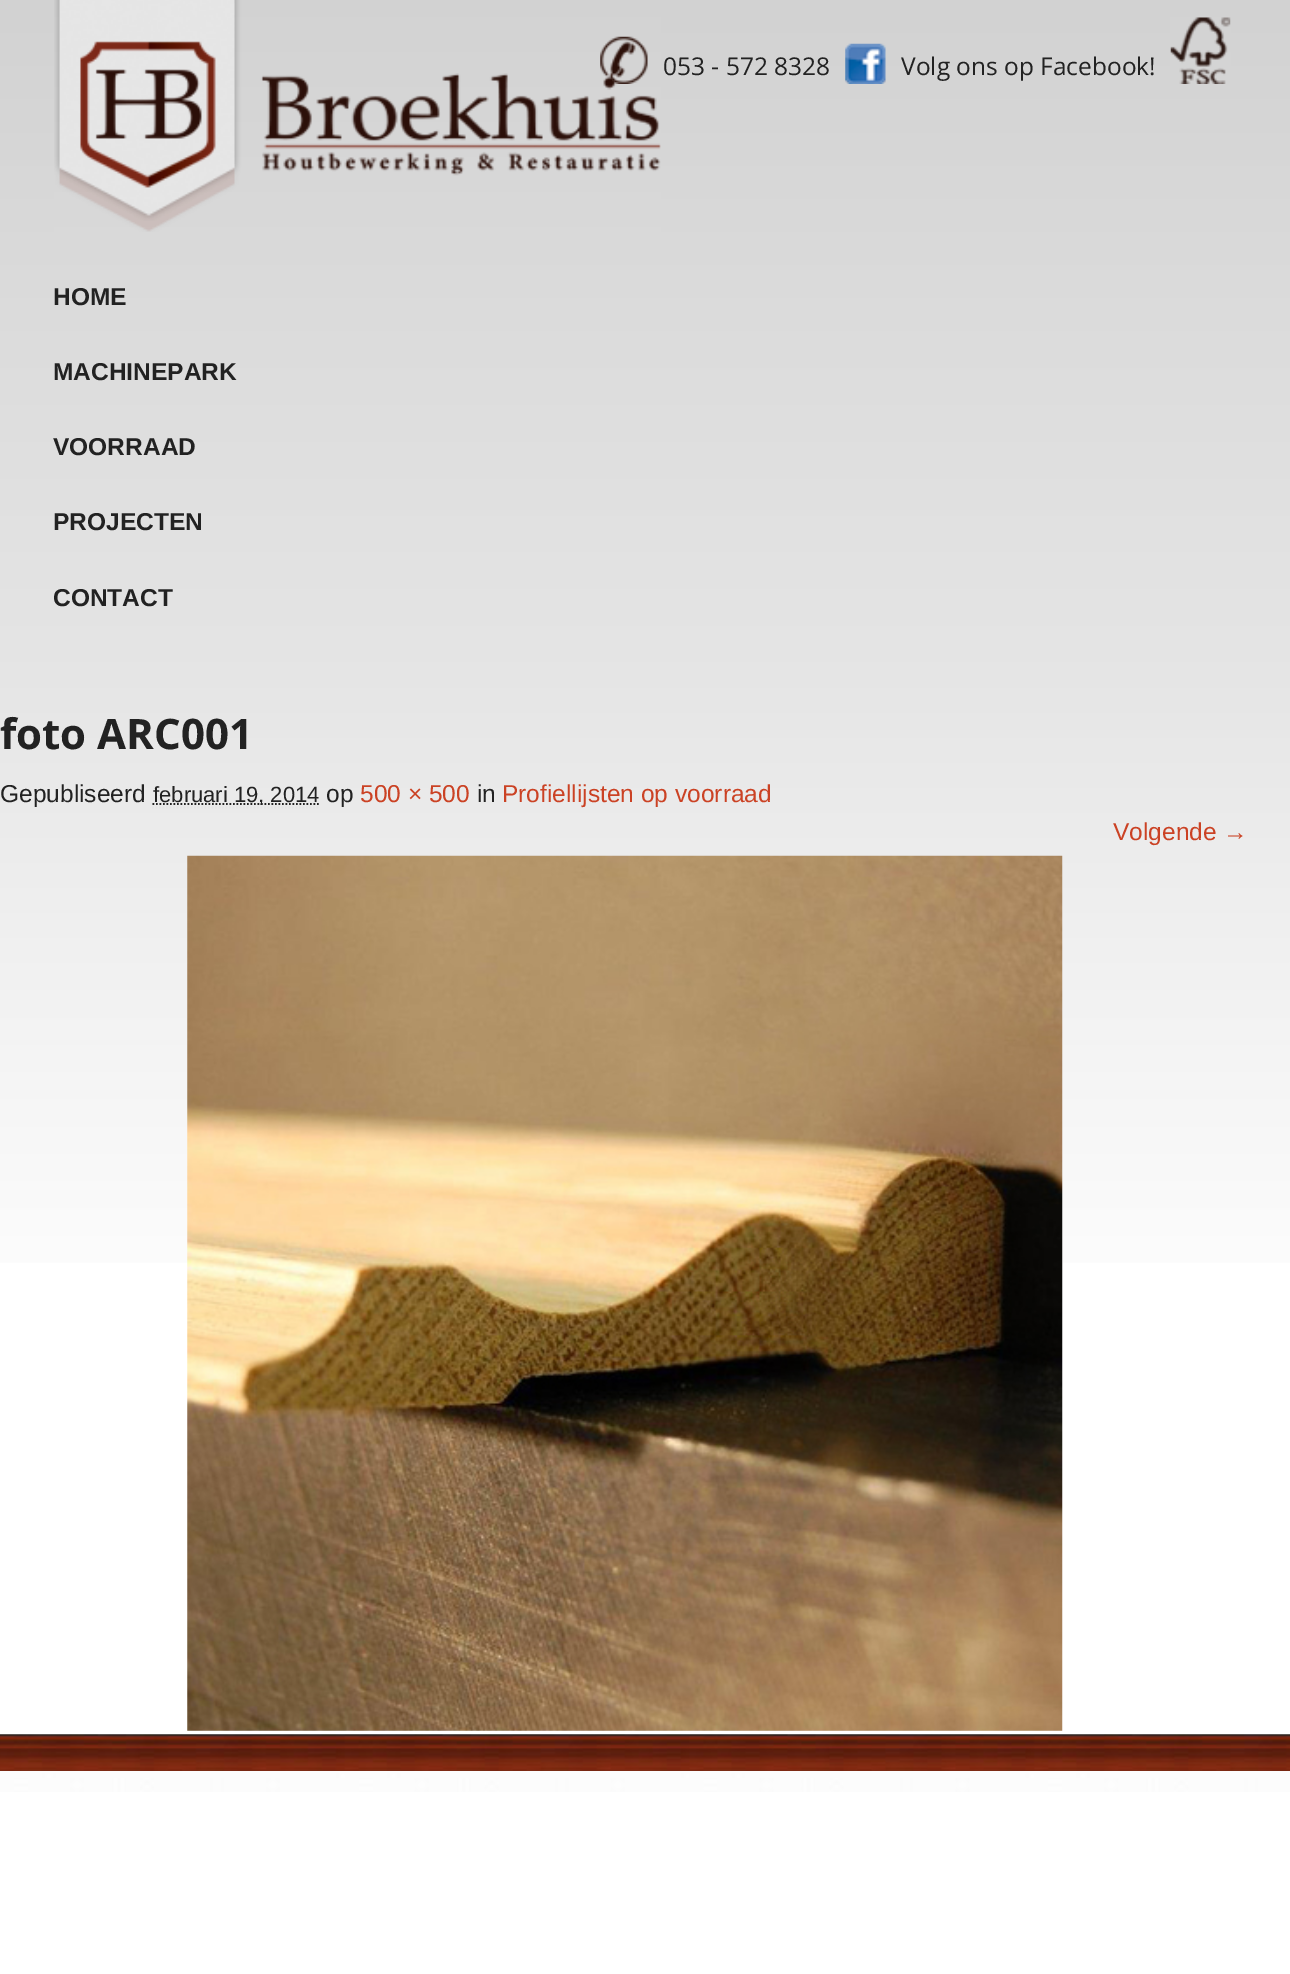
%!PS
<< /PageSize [1290 1974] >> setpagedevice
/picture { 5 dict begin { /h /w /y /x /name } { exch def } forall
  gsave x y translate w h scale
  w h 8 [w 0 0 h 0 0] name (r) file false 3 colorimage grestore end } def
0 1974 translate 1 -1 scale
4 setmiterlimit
1 setgray
0 0 1290 1974 rectfill
(img1.rgb) 0 1734 1290 58 picture
gsave newpath 0 0 moveto 1290 0 lineto 1290 663 lineto 0 663 lineto closepath clip newpath
<< /ShadingType 2 /ColorSpace /DeviceRGB /Coords [646 0 646 663] /Extend [true true] /Function << /FunctionType 2 /Domain [0 1] /C0 [0.824 0.824 0.824] /C1 [0.898 0.898 0.898] /N 1 >> >> shfill grestore
(img2.rgb) 54 0 607 232 picture
(img3.rgb) 600 36 48 48 picture
/OpenSans-Regular [24.5 0 0 -24.5 0 0] selectfont
0.133 setgray
663 75 moveto (053 - 572 8328) show
(img4.rgb) 845 43 41 41 picture
901 75 moveto (Volg ons op Facebook!) show
(img5.rgb) 1170 17 61 67 picture
/LiberationSans-Bold [24.5 0 0 -24.5 0 0] selectfont
53 305 moveto (HOME) show
53 380 moveto (MACHINEPARK) show
53 455 moveto (VOORRAAD) show
53 530 moveto (PROJECTEN) show
53 606 moveto (CONTACT) show
gsave newpath 0 663 moveto 1290 663 lineto 1290 1263 lineto 0 1263 lineto closepath clip newpath
<< /ShadingType 2 /ColorSpace /DeviceRGB /Coords [646 663 646 1734] /Extend [true true] /Function << /FunctionType 3 /Domain [0 1] /Functions [<< /FunctionType 2 /Domain [0 1] /C0 [0.898 0.898 0.898] /C1 [1 1 1] /N 1 >> << /FunctionType 2 /Domain [0 1] /C0 [1 1 1] /C1 [1 1 1] /N 1 >>] /Bounds [0.62] /Encode [0 1 0 1] >> >> shfill grestore
/OpenSans-Bold [42 0 0 -42 0 0] selectfont
0 749 moveto (foto ARC001) show
/LiberationSans-Regular [24.5 0 0 -24.5 0 0] selectfont
0 802 moveto (Gepubliseerd) show
1.8 setlinewidth
[1.75 1.75] 0 setdash
newpath 152.5 804 moveto 319 804 lineto stroke
/LiberationSans-Regular [22 0 0 -22 0 0] selectfont
153 802 moveto (februari 19, 2014) show
0.902 setgray
newpath 152 807.5 moveto 318.5 807.5 lineto stroke
/LiberationSans-Regular [24.5 0 0 -24.5 0 0] selectfont
0.133 setgray
326 802 moveto (op) show
0.796 0.259 0.141 setrgbcolor
360 802 moveto (500 × 500) show
0.133 setgray
477 802 moveto (in) show
0.796 0.259 0.141 setrgbcolor
502 802 moveto (Profiellijsten op voorraad) show
1113 840 moveto (Volgende →) show
(img6.rgb) 187 855 876 876 picture
(img7.rgb) 0 1734 1290 37 picture
showpage
